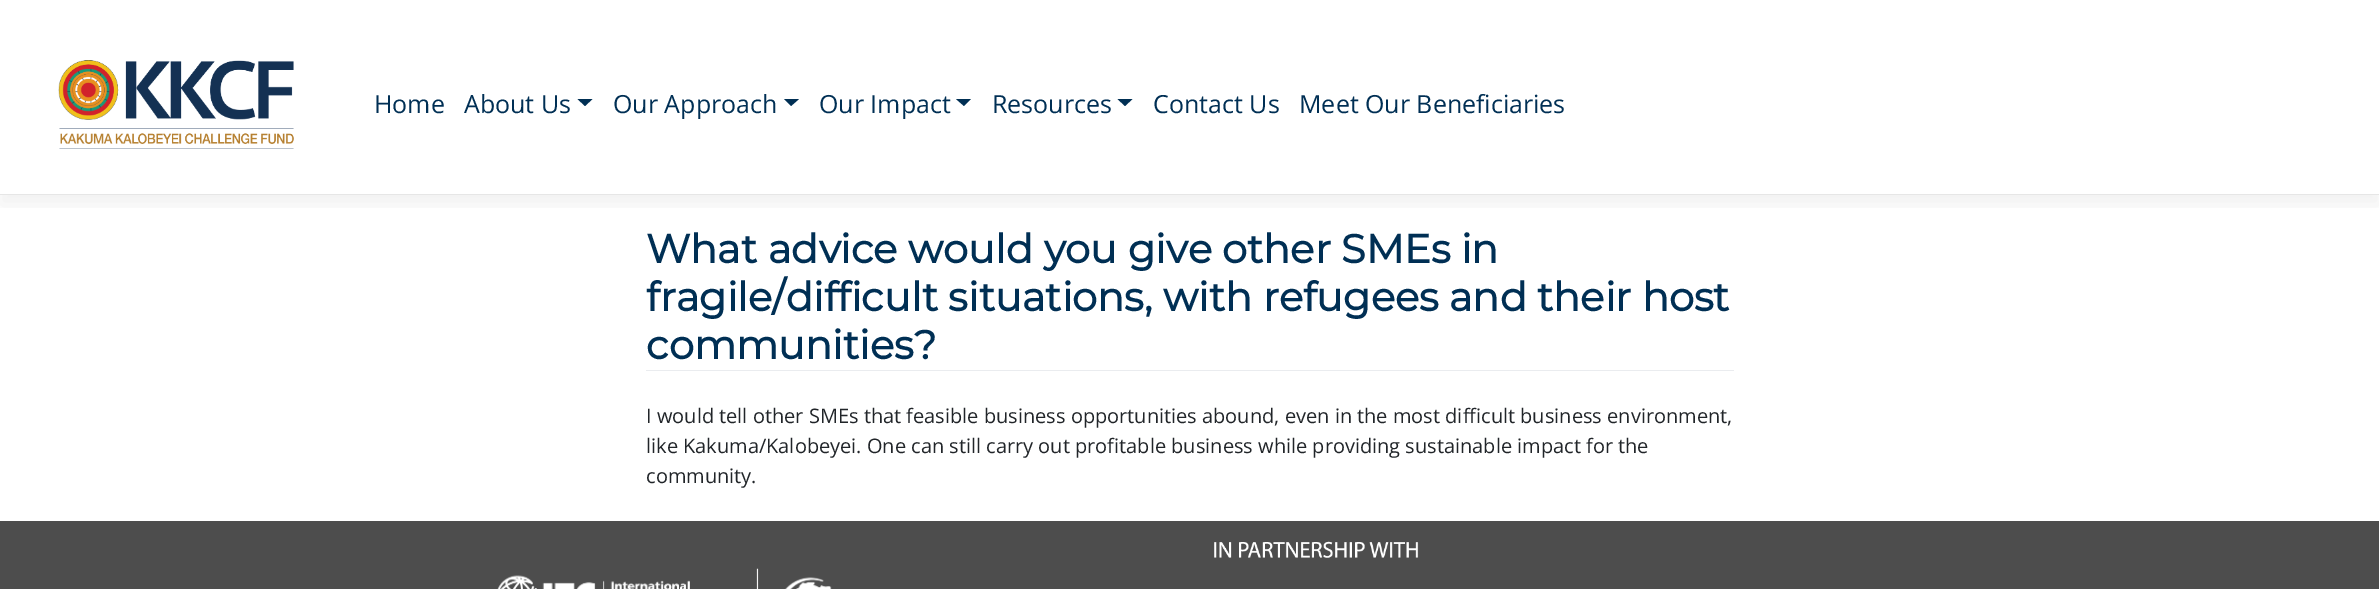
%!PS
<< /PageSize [2379 589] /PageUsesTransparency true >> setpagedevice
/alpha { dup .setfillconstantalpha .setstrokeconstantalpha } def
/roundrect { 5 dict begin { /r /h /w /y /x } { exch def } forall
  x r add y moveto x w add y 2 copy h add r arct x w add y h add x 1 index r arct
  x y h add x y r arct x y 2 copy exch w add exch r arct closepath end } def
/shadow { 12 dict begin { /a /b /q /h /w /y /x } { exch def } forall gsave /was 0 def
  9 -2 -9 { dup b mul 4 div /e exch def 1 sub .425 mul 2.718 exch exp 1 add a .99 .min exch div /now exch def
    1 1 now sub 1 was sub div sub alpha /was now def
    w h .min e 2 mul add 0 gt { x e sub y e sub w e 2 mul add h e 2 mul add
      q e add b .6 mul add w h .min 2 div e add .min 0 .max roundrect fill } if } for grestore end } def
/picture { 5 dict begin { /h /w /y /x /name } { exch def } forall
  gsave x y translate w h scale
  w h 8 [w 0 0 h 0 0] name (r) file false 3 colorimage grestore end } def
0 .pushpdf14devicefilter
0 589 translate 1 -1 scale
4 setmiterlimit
1 setgray
0 0 2379 589 rectfill
gsave
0 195 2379 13 rectclip
0 setgray
0 10 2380 195 0 10 0.05 shadow
grestore
0.902 setgray
0 194 2379 1 rectfill
(img1.rgb) 58 60 236 89 picture
/OpenSans-Regular [25 0 0 -25 0 0] selectfont
0 0.184 0.329 setrgbcolor
374 113 moveto (Home) show
464 113 moveto (About Us) show
newpath 577.5 99 moveto 592.5 99 lineto 585 106 lineto closepath fill
613 113 moveto (Our Approach) show
newpath 784 99 moveto 799 99 lineto 791 106 lineto closepath fill
819 113 moveto (Our Impact) show
newpath 956 99 moveto 971 99 lineto 964 106 lineto closepath fill
992 113 moveto (Resources) show
newpath 1117.5 99 moveto 1132.5 99 lineto 1125 106 lineto closepath fill
1153 113 moveto (Contact Us) show
1299 113 moveto (Meet Our Beneficiaries) show
0.918 0.925 0.937 setrgbcolor
646 370 1088 1 rectfill
/Montserrat-Bold [40 0 0 -40 0 0] selectfont
0 0.184 0.329 setrgbcolor
646 263 moveto (What advice would you give other SMEs in) show
646 311 moveto (fragile/difficult situations, with refugees and their host) show
646 359 moveto (communities?) show
/OpenSans-Regular [20 0 0 -20 0 0] selectfont
0.129 0.145 0.161 setrgbcolor
646 423 moveto (I would tell other SMEs that feasible business opportunities abound, even in the most difficult business environment,) show
646 453 moveto (like Kakuma/Kalobeyei. One can still carry out profitable business while providing sustainable impact for the) show
646 483 moveto (community.) show
0.302 setgray
0 521 2379 68 rectfill
(img2.rgb) 1214 541 205 17 picture
(img3.rgb) 497 568 335 21 picture
.poppdf14devicefilter showpage
